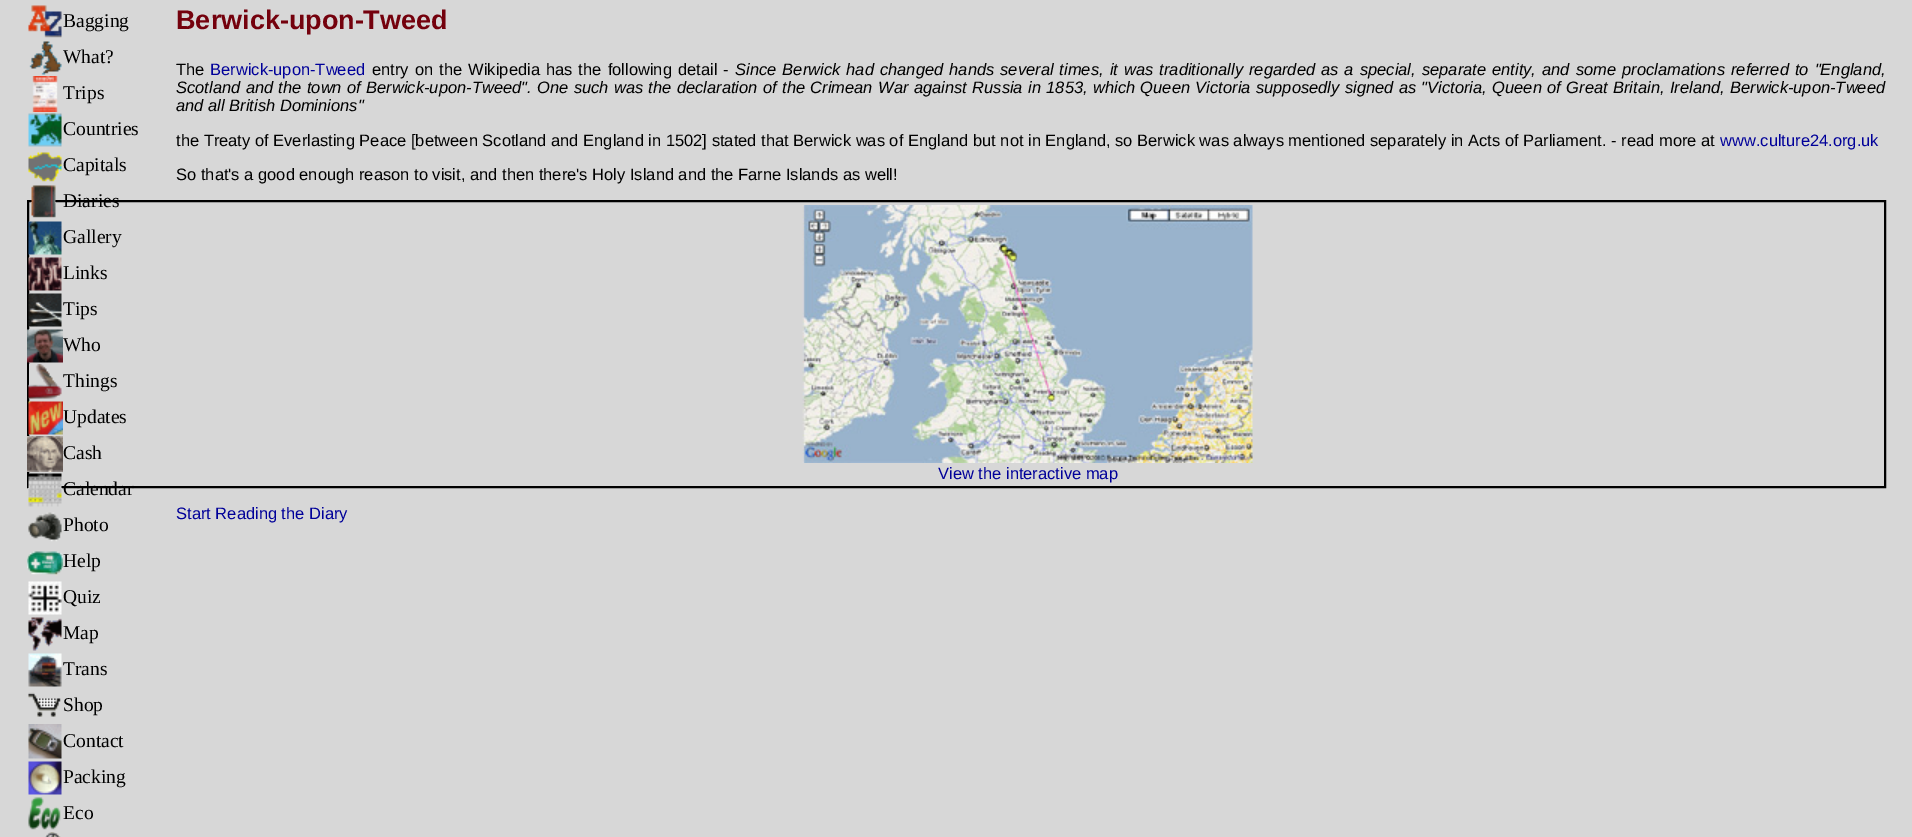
%!PS
<< /PageSize [1912 837] >> setpagedevice
/picture { 5 dict begin { /h /w /y /x /name } { exch def } forall
  gsave x y translate w h scale
  w h 8 [w 0 0 h 0 0] name (r) file false 3 colorimage grestore end } def
0 837 translate 1 -1 scale
4 setmiterlimit
0.843 setgray
0 0 1912 837 rectfill
(img1.rgb) 28 5 34 33 picture
/LiberationSerif-Regular [19.5 0 0 -19.5 0 0] selectfont
0 setgray
63 27 moveto (Bagging) show
(img2.rgb) 29 41 33 34 picture
63 63 moveto (What?) show
(img3.rgb) 32 76 26 36 picture
63 99 moveto (Trips) show
(img4.rgb) 28 113 34 34 picture
63 135 moveto (Countries) show
(img5.rgb) 28 152 34 30 picture
63 171 moveto (Capitals) show
2 setlinewidth
28 201 1857 286 rectstroke
(img6.rgb) 31 185 25 33 picture
63 207 moveto (Diaries) show
(img7.rgb) 28 221 34 34 picture
63 243 moveto (Gallery) show
(img8.rgb) 28 257 34 34 picture
63 279 moveto (Links) show
(img9.rgb) 28 293 34 34 picture
63 315 moveto (Tips) show
(img10.rgb) 27 329 36 34 picture
63 351 moveto (Who) show
(img11.rgb) 28 364 34 35 picture
63 387 moveto (Things) show
(img12.rgb) 28 401 35 34 picture
63 423 moveto (Updates) show
(img13.rgb) 27 436 36 36 picture
63 459 moveto (Cash) show
(img14.rgb) 28 473 34 34 picture
63 495 moveto (Calendar) show
(img15.rgb) 28 512 35 30 picture
63 531 moveto (Photo) show
(img16.rgb) 27 551 36 25 picture
63 567 moveto (Help) show
(img17.rgb) 28 581 34 34 picture
63 603 moveto (Quiz) show
(img18.rgb) 28 617 34 34 picture
63 639 moveto (Map) show
(img19.rgb) 28 653 34 34 picture
63 675 moveto (Trans) show
(img20.rgb) 28 692 33 25 picture
63 711 moveto (Shop) show
(img21.rgb) 28 724 34 35 picture
63 747 moveto (Contact) show
(img22.rgb) 28 761 34 34 picture
63 783 moveto (Packing) show
(img23.rgb) 28 797 33 33 picture
63 819 moveto (Eco) show
(img24.rgb) 45 832 16 5 picture
/LiberationSans-Bold [27 0 0 -27 0 0] selectfont
0.455 0.004 0.051 setrgbcolor
176 29 moveto (Berwick-upon-Tweed) show
/LiberationSans-Regular [16.5 0 0 -16.5 0 0] selectfont
0 setgray
176 75 moveto (The) show
0 0 0.6 setrgbcolor
210 75 moveto (Berwick-upon-Tweed) show
0 setgray
372 75 moveto 1.5 0 32 (entry on the Wikipedia has the following detail -) widthshow
/LiberationSans-Italic [16.5 0 0 -16.5 0 0] selectfont
735 75 moveto 1.5 0 32 (Since Berwick had changed hands several times, it was traditionally regarded as a special, separate entity, and some proclamations referred to "England,) widthshow
176 93 moveto 0.8 0 32 (Scotland and the town of Berwick-upon-Tweed". One such was the declaration of the Crimean War against Russia in 1853, which Queen Victoria supposedly signed as "Victoria, Queen of Great Britain, Ireland, Berwick-upon-Tweed) widthshow
176 111 moveto (and all British Dominions") show
/LiberationSans-Regular [16.5 0 0 -16.5 0 0] selectfont
176 146 moveto (the Treaty of Everlasting Peace [between Scotland and England in 1502] stated that Berwick was of England but not in England, so Berwick was always mentioned separately in Acts of Parliament. - read more at) show
0 0 0.6 setrgbcolor
1720 146 moveto (www.culture24.org.uk) show
0 setgray
176 180 moveto (So that's a good enough reason to visit, and then there's Holy Island and the Farne Islands as well!) show
(img25.rgb) 802 205 451 258 picture
0 0 0.6 setrgbcolor
938 479 moveto (View the interactive map) show
176 519 moveto (Start Reading the Diary) show
showpage
